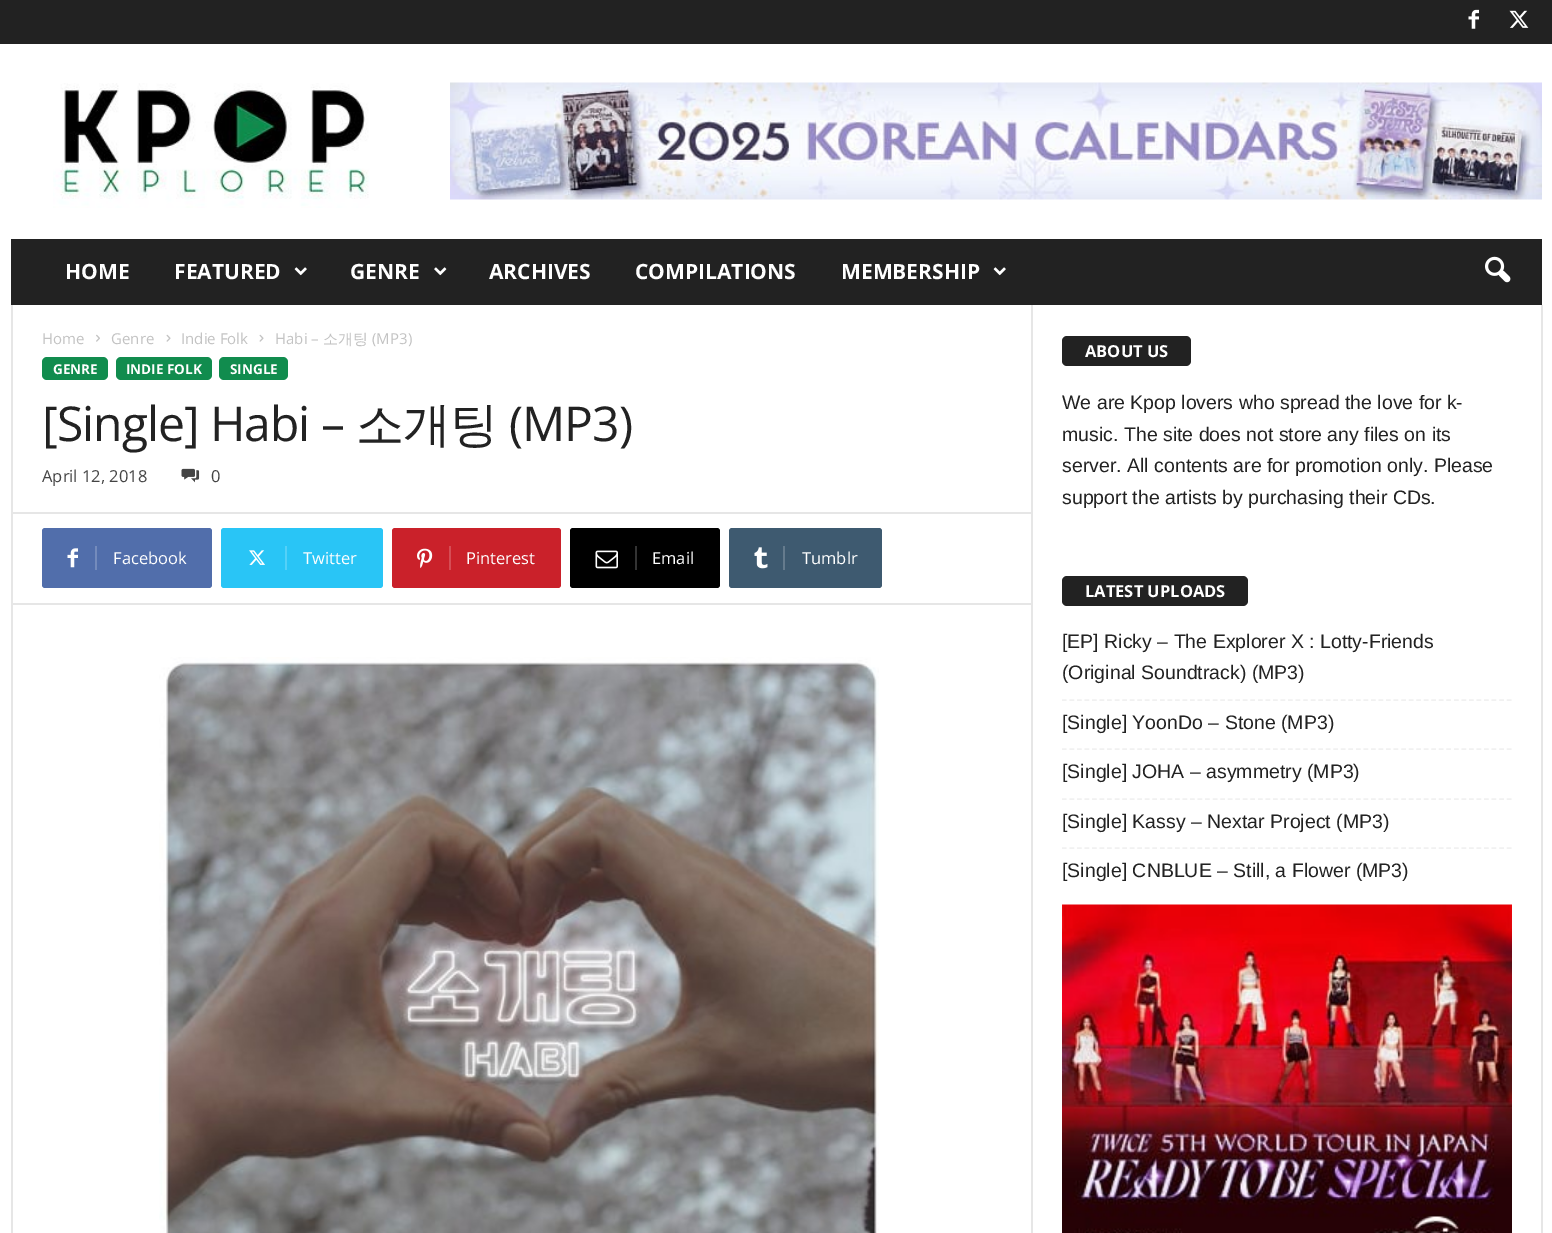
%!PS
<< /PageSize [1552 1233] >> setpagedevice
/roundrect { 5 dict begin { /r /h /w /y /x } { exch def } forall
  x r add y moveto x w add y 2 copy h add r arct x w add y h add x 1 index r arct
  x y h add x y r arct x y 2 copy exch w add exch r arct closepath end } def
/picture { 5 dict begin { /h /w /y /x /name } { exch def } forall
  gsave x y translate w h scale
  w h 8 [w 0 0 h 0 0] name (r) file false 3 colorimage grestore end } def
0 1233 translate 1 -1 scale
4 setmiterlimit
1 setgray
0 0 1552 1233 rectfill
0.133 setgray
0 0 1552 44 rectfill
(img1.rgb) 1468 9 11 20 picture
(img2.rgb) 1509 10 20 18 picture
(img3.rgb) 53 83 317 125 picture
(img4.rgb) 450 82 1092 118 picture
11 239 1531 66 rectfill
/OpenSans-Bold [21 0 0 -21 0 0] selectfont
1 setgray
65 279 moveto (HOME) show
174 279 moveto (FEATURED) show
(img5.rgb) 294 267 13 9 picture
350 279 moveto (GENRE) show
(img6.rgb) 434 267 13 9 picture
489 279 moveto (ARCHIVES) show
635 279 moveto (COMPILATIONS) show
841 279 moveto (MEMBERSHIP) show
(img5.rgb) 993 267 13 9 picture
(img7.rgb) 1485 256 26 27 picture
0.902 setgray
11 305 2 928 rectfill
/OpenSans-Regular [15 0 0 -15 0 0] selectfont
0.765 setgray
42 344 moveto (Home) show
(img8.rgb) 96 334 4 8 picture
111 344 moveto (Genre) show
(img9.rgb) 166 334 5 8 picture
181 344 moveto (Indie Folk) show
(img9.rgb) 259 334 5 8 picture
275 344 moveto (Habi –) show
/WenQuanYiZenHei-Medium [15 0 0 -15 0 0] selectfont
323 344 moveto (소개팅) show
/OpenSans-Regular [15 0 0 -15 0 0] selectfont
372 344 moveto (\(MP3\)) show
0.067 0.549 0.306 setrgbcolor
42 357 66 23 5 roundrect fill
/OpenSans-Bold [13.5 0 0 -13.5 0 0] selectfont
1 setgray
53 374 moveto (GENRE) show
0.067 0.549 0.306 setrgbcolor
116 357 96 23 5 roundrect fill
1 setgray
126 374 moveto (INDIE FOLK) show
0.067 0.549 0.306 setrgbcolor
219 357 69 23 5 roundrect fill
1 setgray
230 374 moveto (SINGLE) show
/OpenSans-Regular [48 0 0 -48 0 0] selectfont
0.133 setgray
42 441 moveto -1 0 ([Single] Habi –) ashow
/WenQuanYiZenHei-Medium [48 0 0 -48 0 0] selectfont
356 441 moveto -1 0 (소개팅) ashow
/OpenSans-Regular [48 0 0 -48 0 0] selectfont
509 441 moveto -1 0 (\(MP3\)) ashow
/OpenSans-Regular [16.5 0 0 -16.5 0 0] selectfont
0.267 setgray
42 482 moveto (April 12, 2018) show
(img10.rgb) 181 468 19 15 picture
211 482 moveto (0) show
0.902 setgray
12 512 1019 2 rectfill
0.318 0.431 0.671 setrgbcolor
newpath 95 528 moveto 209 528 lineto 210.5 528 212 529.5 212 531 curveto 212 585 lineto 212 586.5 210.5 588 209 588 curveto 95 588 lineto closepath fill
newpath 45 528 moveto 104 528 lineto 104 588 lineto 45 588 lineto 43.5 588 42 586.5 42 585 curveto 42 531 lineto 42 529.5 43.5 528 45 528 curveto closepath fill
(img11.rgb) 67 548 11 20 picture
0.455 0.545 0.737 setrgbcolor
95 546 2 24 rectfill
1 setgray
113 564 moveto (Facebook) show
0.161 0.773 0.965 setrgbcolor
newpath 285 528 moveto 380 528 lineto 381.5 528 383 529.5 383 531 curveto 383 585 lineto 383 586.5 381.5 588 380 588 curveto 285 588 lineto closepath fill
newpath 224 528 moveto 294 528 lineto 294 588 lineto 224 588 lineto 222.5 588 221 586.5 221 585 curveto 221 531 lineto 221 529.5 222.5 528 224 528 curveto closepath fill
(img12.rgb) 249 550 16 15 picture
0.329 0.82 0.973 setrgbcolor
285 546 2 24 rectfill
1 setgray
303 564 moveto (Twitter) show
0.792 0.129 0.165 setrgbcolor
newpath 449 528 moveto 558 528 lineto 559.5 528 561 529.5 561 531 curveto 561 585 lineto 561 586.5 559.5 588 558 588 curveto 449 588 lineto closepath fill
newpath 395 528 moveto 458 528 lineto 458 588 lineto 395 588 lineto 393.5 588 392 586.5 392 585 curveto 392 531 lineto 392 529.5 393.5 528 395 528 curveto closepath fill
(img13.rgb) 417 548 16 21 picture
0.835 0.302 0.333 setrgbcolor
449 546 2 24 rectfill
1 setgray
466 564 moveto (Pinterest) show
0 setgray
newpath 635 528 moveto 717 528 lineto 718.5 528 720 529.5 720 531 curveto 720 585 lineto 720 586.5 718.5 588 717 588 curveto 635 588 lineto closepath fill
newpath 573 528 moveto 644 528 lineto 644 588 lineto 573 588 lineto 571.5 588 570 586.5 570 585 curveto 570 531 lineto 570 529.5 571.5 528 573 528 curveto closepath fill
(img14.rgb) 595 550 23 19 picture
0.2 setgray
635 546 2 24 rectfill
1 setgray
652 564 moveto (Email) show
0.243 0.353 0.439 setrgbcolor
newpath 783 528 moveto 879 528 lineto 880.5 528 882 529.5 882 531 curveto 882 585 lineto 882 586.5 880.5 588 879 588 curveto 783 588 lineto closepath fill
newpath 732 528 moveto 792 528 lineto 792 588 lineto 732 588 lineto 730.5 588 729 586.5 729 585 curveto 729 531 lineto 729 529.5 730.5 528 732 528 curveto closepath fill
(img15.rgb) 754 547 14 22 picture
0.396 0.482 0.553 setrgbcolor
783 546 2 24 rectfill
1 setgray
802 564 moveto (Tumblr) show
0.902 setgray
12 603 1019 2 rectfill
(img16.rgb) 159 657 720 576 picture
1031 305 2 928 rectfill
0.133 setgray
1062 336 129 30 5 roundrect fill
/OpenSans-Bold [16.5 0 0 -16.5 0 0] selectfont
1 setgray
1085 357 moveto (ABOUT US) show
/LiberationSans-Regular [19.5 0 0 -19.5 0 0] selectfont
0.133 setgray
1062 409 moveto (We are Kpop lovers who spread the love for k-) show
1062 441 moveto (music. The site does not store any files on its) show
1062 472 moveto (server. All contents are for promotion only. Please) show
1062 504 moveto (support the artists by purchasing their CDs.) show
1062 576 186 30 5 roundrect fill
/OpenSans-Bold [16.5 0 0 -16.5 0 0] selectfont
1 setgray
1085 597 moveto (LATEST UPLOADS) show
0.945 setgray
1.5 setlinewidth
[4.5 3.04] 0 setdash
newpath 1062 700 moveto 1512 700 lineto stroke
/LiberationSans-Regular [19.5 0 0 -19.5 0 0] selectfont
0.133 setgray
1062 648 moveto ([EP] Ricky – The Explorer X : Lotty-Friends) show
1062 679 moveto (\(Original Soundtrack\) \(MP3\)) show
0.945 setgray
newpath 1062 749 moveto 1512 749 lineto stroke
0.133 setgray
1062 729 moveto ([Single] YoonDo – Stone \(MP3\)) show
0.945 setgray
newpath 1062 799 moveto 1512 799 lineto stroke
0.133 setgray
1062 778 moveto ([Single] JOHA – asymmetry \(MP3\)) show
0.945 setgray
newpath 1062 848 moveto 1512 848 lineto stroke
0.133 setgray
1062 828 moveto ([Single] Kassy – Nextar Project \(MP3\)) show
1062 877 moveto ([Single] CNBLUE – Still, a Flower \(MP3\)) show
(img17.rgb) 1062 904 450 329 picture
0.902 setgray
1541 305 2 928 rectfill
showpage
